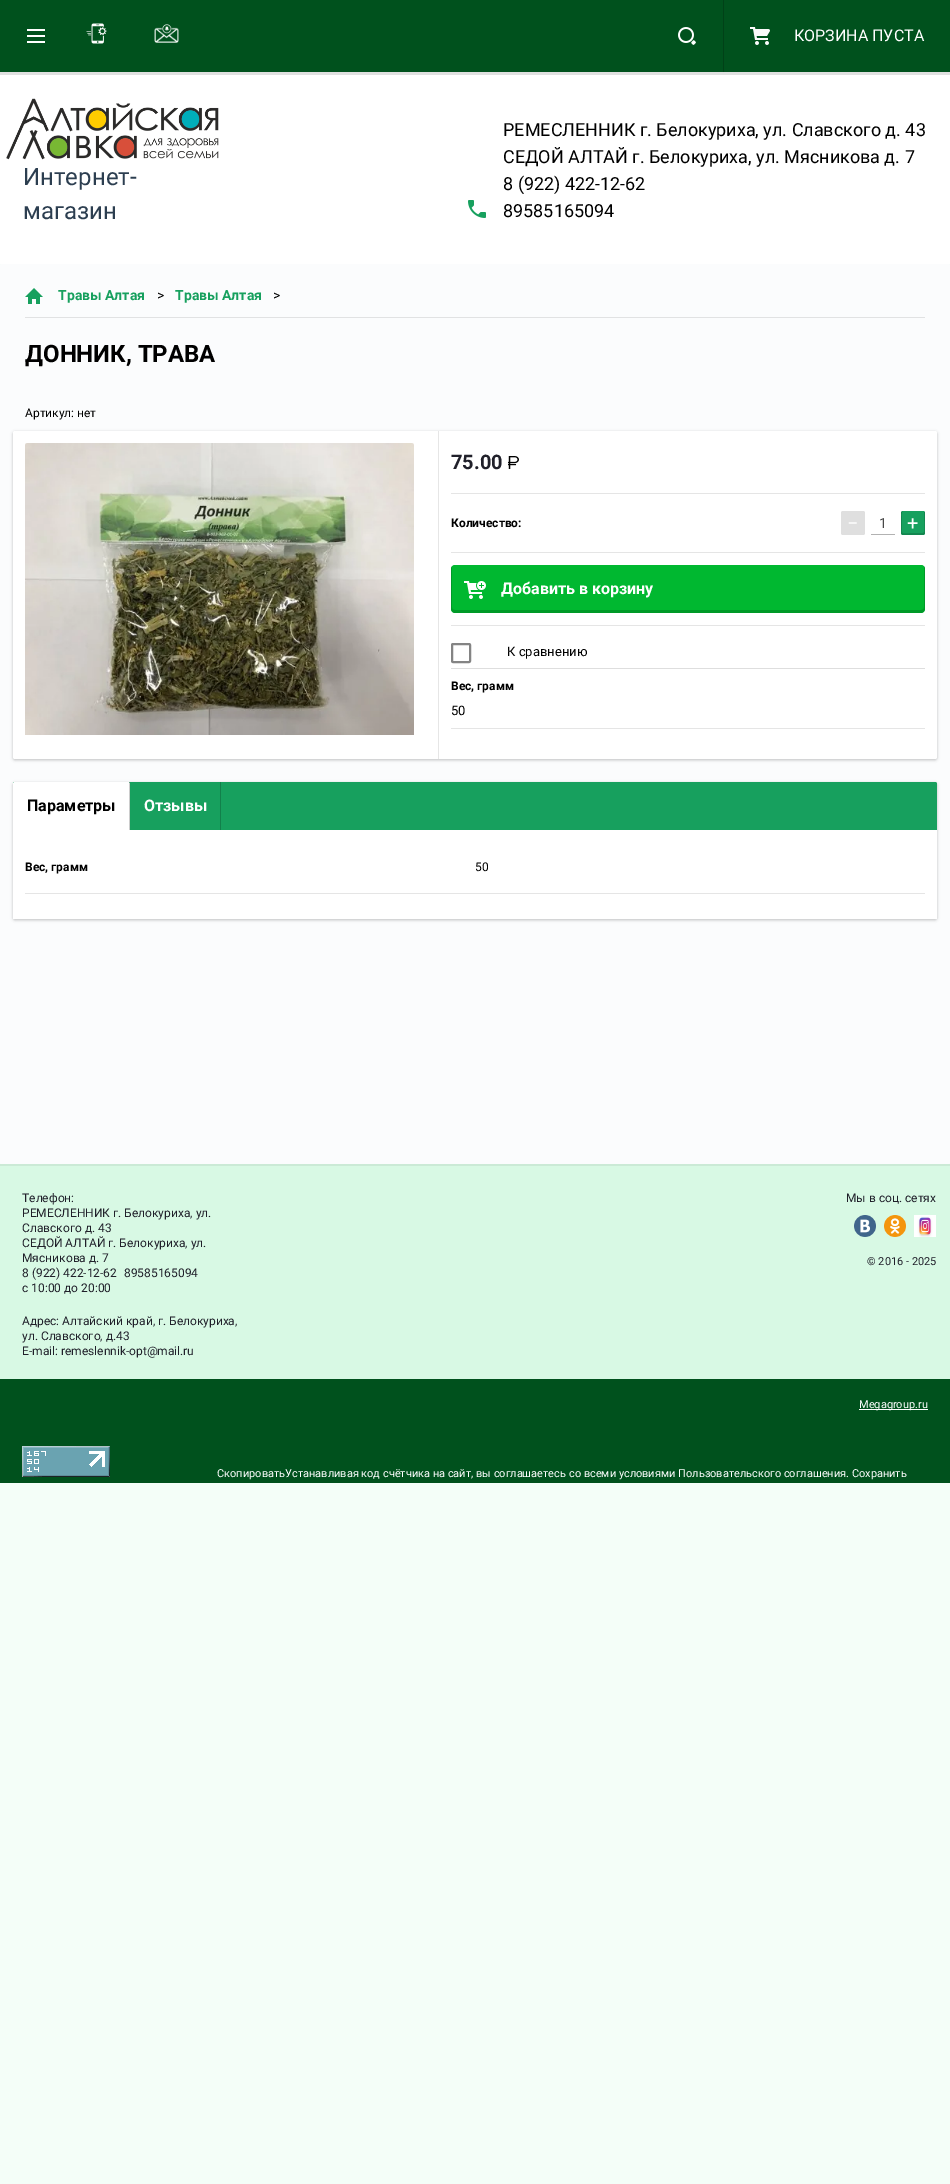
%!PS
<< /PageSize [950 2184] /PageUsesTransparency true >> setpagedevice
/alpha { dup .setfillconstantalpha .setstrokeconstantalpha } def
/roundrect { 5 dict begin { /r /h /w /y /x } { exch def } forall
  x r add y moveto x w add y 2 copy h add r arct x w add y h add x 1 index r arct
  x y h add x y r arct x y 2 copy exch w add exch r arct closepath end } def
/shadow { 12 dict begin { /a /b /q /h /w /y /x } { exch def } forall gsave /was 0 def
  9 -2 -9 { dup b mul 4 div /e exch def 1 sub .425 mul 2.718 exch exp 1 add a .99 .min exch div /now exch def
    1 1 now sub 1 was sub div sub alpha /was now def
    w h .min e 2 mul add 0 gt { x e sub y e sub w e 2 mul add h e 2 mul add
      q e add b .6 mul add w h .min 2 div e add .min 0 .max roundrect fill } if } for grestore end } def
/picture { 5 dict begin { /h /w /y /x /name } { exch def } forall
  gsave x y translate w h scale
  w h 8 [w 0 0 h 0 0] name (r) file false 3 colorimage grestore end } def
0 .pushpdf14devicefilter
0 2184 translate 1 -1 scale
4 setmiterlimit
0.957 0.996 0.973 setrgbcolor
0 0 950 2184 rectfill
1 setgray
0 75 950 189 rectfill
0.878 setgray
0 72 950 3 rectfill
0 0.318 0.114 setrgbcolor
0 0 950 72 rectfill
(img1.rgb) 27 29 18 14 picture
(img2.rgb) 86 23 21 21 picture
(img3.rgb) 154 24 25 19 picture
(img4.rgb) 678 27 18 18 picture
0 0.255 0.09 setrgbcolor
723 0 1 72 rectfill
(img5.rgb) 750 27 20 18 picture
/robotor-Regular [16 0 0 -16 0 0] selectfont
1 setgray
794 41 moveto (КОРЗИНА ПУСТА) show
(img6.rgb) 6 98 213 62 picture
/robotor-Regular [24 0 0 -24 0 0] selectfont
0.173 0.243 0.314 setrgbcolor
23 185 moveto (Интернет-) show
23 219 moveto (магазин) show
/robotor-Regular [18 0 0 -18 0 0] selectfont
0 setgray
503 136 moveto (РЕМЕСЛЕННИК г. Белокуриха, ул. Славского д. 43) show
503 163 moveto (СЕДОЙ АЛТАЙ г. Белокуриха, ул. Мясникова д. 7) show
503 190 moveto (8 \(922\) 422-12-62) show
(img7.rgb) 468 200 18 18 picture
503 217 moveto (89585165094) show
0.984 0.988 0.992 setrgbcolor
0 264 950 900 2 roundrect fill
0.882 0.886 0.89 setrgbcolor
25 317 900 1 rectfill
(img8.rgb) 25 288 18 16 picture
/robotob-Bold [14 0 0 -14 0 0] selectfont
0.09 0.627 0.369 setrgbcolor
58 300 moveto (Травы Алтая) show
/robotor-Regular [14 0 0 -14 0 0] selectfont
0 setgray
157 300 moveto (>) show
/robotob-Bold [14 0 0 -14 0 0] selectfont
0.09 0.627 0.369 setrgbcolor
175 300 moveto (Травы Алтая) show
/robotor-Regular [14 0 0 -14 0 0] selectfont
0 setgray
273 300 moveto (>) show
/robotob-Bold [24 0 0 -24 0 0] selectfont
25 362 moveto (ДОННИК, ТРАВА) show
/robotor-Regular [12 0 0 -12 0 0] selectfont
25 417 moveto (Артикул: нет) show
13 432 924 328 2 1.5 0.24 shadow
1 setgray
13 431 924 328 2 roundrect fill
(img9.rgb) 25 443 389 292 picture
0.902 setgray
438 431 1 328 rectfill
/robotob-Bold [20 0 0 -20 0 0] selectfont
0.125 0.125 0.165 setrgbcolor
451 469 moveto (75.00) show
(img10.rgb) 508 456 11 13 picture
0.898 setgray
451 493 474 1 rectfill
451 552 474 1 rectfill
/robotob-Bold [12 0 0 -12 0 0] selectfont
0 setgray
451 527 moveto (Количество:) show
0.875 setgray
841 511 24 24 2 roundrect fill
/robotor-Regular [20 0 0 -20 0 0] selectfont
1 setgray
847 530 moveto (−) show
0.698 setgray
871 534 24 1 rectfill
/robotor-Regular [14 0 0 -14 0 0] selectfont
0.282 setgray
879 528 moveto (1) show
0.09 0.627 0.369 setrgbcolor
901 511 24 24 2 roundrect fill
0.16 alpha
0 setgray
newpath 903 511 moveto 902 511 901 512 901 513 curveto 901 533 lineto 901 534 902 535 903 535 curveto 923 535 lineto 924 535 925 534 925 533 curveto 925 513 lineto 925 512.5 924.5 511.5 924 511.5 curveto 924.5 531 lineto 924 533 923 533.5 920.5 533 curveto 913 533 lineto 911.5 533 904 534 902.5 533 curveto 902 531.5 lineto 902 517.5 lineto 901.5 516.5 901.5 511 903 511 curveto closepath fill
/robotor-Regular [20 0 0 -20 0 0] selectfont
1 alpha
1 setgray
907 530 moveto (+) show
0 0.722 0.188 setrgbcolor
451 565 474 48 4 roundrect fill
0.16 alpha
0 setgray
newpath 452 566 moveto 451 567 451 568 451 569 curveto 451 609 lineto 451 611 453 613 455 613 curveto 921 613 lineto 923 613 925 611 925 609 curveto 925 569 lineto 925 568 925 567 924 566 curveto 924 607 lineto 924 609 923 610 921 610 curveto 455 610 lineto 453 610 452 609 452 607 curveto closepath fill
1 alpha
(img11.rgb) 464 581 22 18 picture
/robotob-Bold [16 0 0 -16 0 0] selectfont
1 setgray
501 594 moveto (Добавить в корзину) show
0.898 setgray
451 625 474 1 rectfill
0.871 setgray
451 668 474 1 rectfill
0.518 setgray
2 setlinewidth
452 644 18 18 1 roundrect stroke
/robotor-Regular [13 0 0 -13 0 0] selectfont
0 setgray
507 656 moveto (К сравнению) show
0.898 setgray
451 728 474 1 rectfill
/robotob-Bold [12 0 0 -12 0 0] selectfont
0 setgray
451 690 moveto (Вес, грамм) show
/robotor-Regular [13 0 0 -13 0 0] selectfont
451 715 moveto (50) show
13 783 924 137 2 1.5 0.24 shadow
0.09 0.627 0.369 setrgbcolor
13 782 924 137 2 roundrect fill
1 setgray
newpath 15 782 moveto 128 782 lineto 129 782 130 783 130 784 curveto 130 830 lineto 13 830 lineto 13 784 lineto 13 783 14 782 15 782 curveto closepath fill
/robotob-Bold [16 0 0 -16 0 0] selectfont
0 setgray
27 811 moveto (Параметры) show
0.2 alpha
129 782 1 48 rectfill
1 alpha
1 setgray
144 811 moveto (Отзывы) show
0.071 0.502 0.294 setrgbcolor
220 782 1 48 rectfill
1 setgray
13 830 924 89 rectfill
0.898 setgray
25 893 900 1 rectfill
/robotob-Bold [12 0 0 -12 0 0] selectfont
0 setgray
25 871 moveto (Вес, грамм) show
/robotor-Regular [12 0 0 -12 0 0] selectfont
475 871 moveto (50) show
0.847 0.976 0.894 setrgbcolor
0 1166 950 213 rectfill
0.796 0.918 0.839 setrgbcolor
0 1164 950 2 rectfill
0.125 0.125 0.165 setrgbcolor
22 1202 moveto (Телефон:) show
22 1217 moveto (РЕМЕСЛЕННИК г. Белокуриха, ул.) show
22 1232 moveto (Славского д. 43) show
22 1247 moveto (СЕДОЙ АЛТАЙ г. Белокуриха, ул.) show
22 1262 moveto (Мясникова д. 7) show
22 1277 moveto (8 \(922\) 422-12-62) show
124 1277 moveto (89585165094) show
22 1292 moveto (с 10:00 до 20:00) show
22 1325 moveto (Адрес: Алтайский край, г. Белокуриха,) show
22 1340 moveto (ул. Славского, д.43) show
22 1355 moveto (Е-mail: remeslennik-opt@mail.ru) show
846 1202 moveto (Мы в соц. сетях) show
(img12.rgb) 854 1215 22 22 picture
(img13.rgb) 884 1215 22 22 picture
(img14.rgb) 914 1215 22 22 picture
/robotor-Regular [11 0 0 -11 0 0] selectfont
867 1265 moveto (© 2016 - 2025) show
0 0.318 0.114 setrgbcolor
0 1379 950 104 rectfill
1 setgray
859 1409 69 1 rectfill
859 1408 moveto (Megagroup.ru) show
(img15.rgb) 22 1446 88 31 picture
217 1477 moveto (СкопироватьУстанавливая код счётчика на сайт, вы соглашаетесь со всеми условиями Пользовательского соглашения. Сохранить) show
.poppdf14devicefilter showpage
